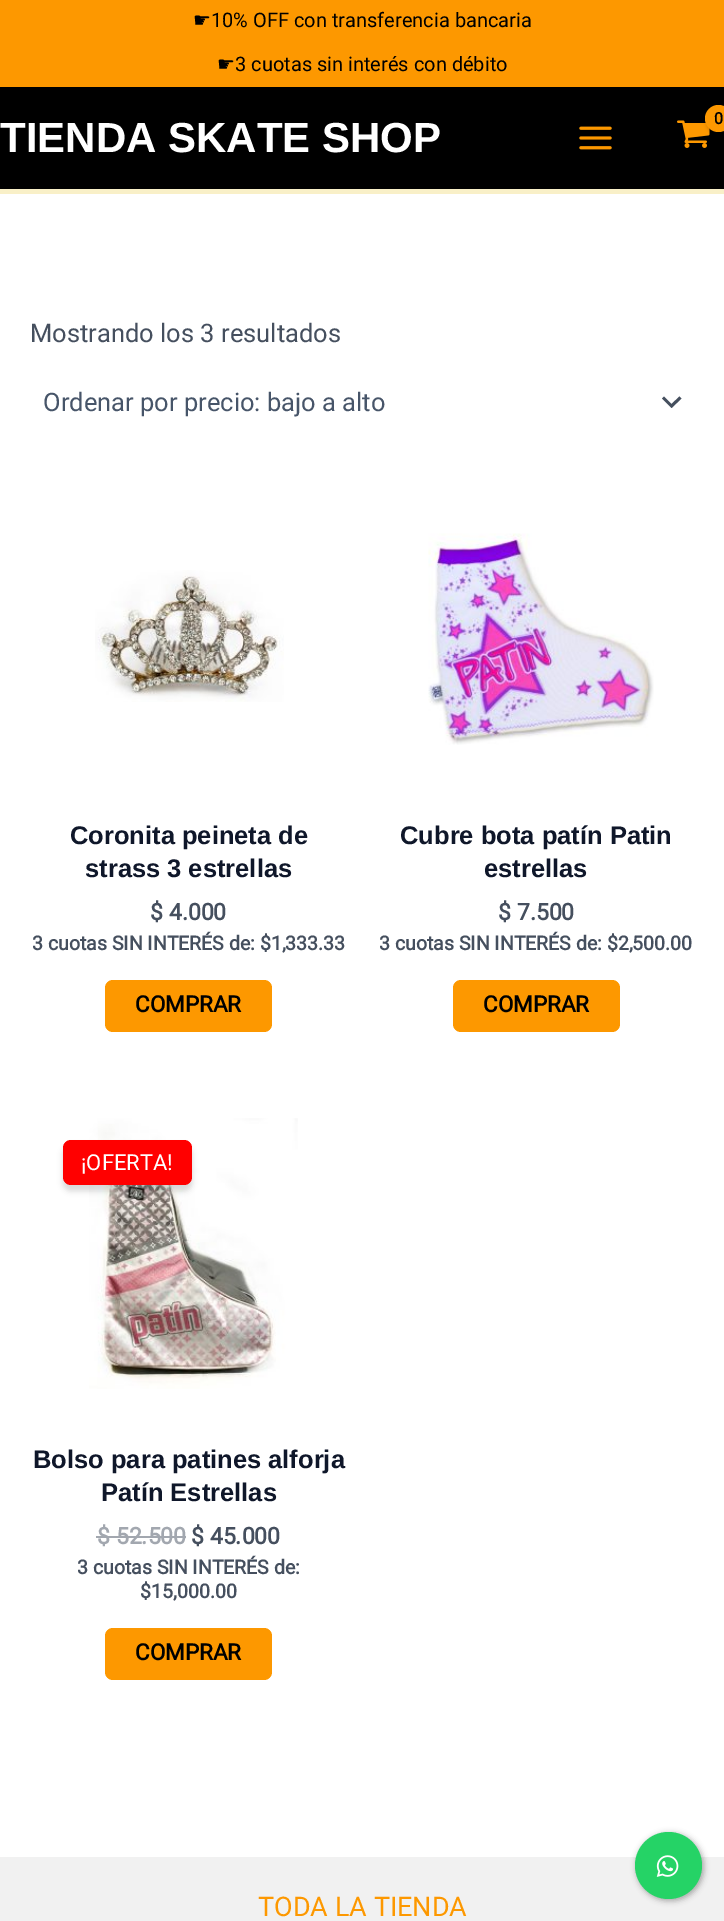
%!PS
<< /PageSize [724 1921] /PageUsesTransparency true >> setpagedevice
/alpha { dup .setfillconstantalpha .setstrokeconstantalpha } def
/roundrect { 5 dict begin { /r /h /w /y /x } { exch def } forall
  x r add y moveto x w add y 2 copy h add r arct x w add y h add x 1 index r arct
  x y h add x y r arct x y 2 copy exch w add exch r arct closepath end } def
/shadow { 12 dict begin { /a /b /q /h /w /y /x } { exch def } forall gsave /was 0 def
  9 -2 -9 { dup b mul 4 div /e exch def 1 sub .425 mul 2.718 exch exp 1 add a .99 .min exch div /now exch def
    1 1 now sub 1 was sub div sub alpha /was now def
    w h .min e 2 mul add 0 gt { x e sub y e sub w e 2 mul add h e 2 mul add
      q e add b .6 mul add w h .min 2 div e add .min 0 .max roundrect fill } if } for grestore end } def
/picture { 5 dict begin { /h /w /y /x /name } { exch def } forall
  gsave x y translate w h scale
  w h 8 [w 0 0 h 0 0] name (r) file false 3 colorimage grestore end } def
0 .pushpdf14devicefilter
0 1921 translate 1 -1 scale
4 setmiterlimit
1 setgray
0 0 724 1921 rectfill
0.992 0.596 0 setrgbcolor
0 0 724 87 rectfill
/DejaVuSans-Regular [20 0 0 -20 0 0] selectfont
0 setgray
193 27 moveto (☛) show
/Roboto-Regular [20 0 0 -20 0 0] selectfont
211 27 moveto (10% OFF con transferencia bancaria) show
/DejaVuSans-Regular [20 0 0 -20 0 0] selectfont
217 71 moveto (☛) show
/Roboto-Regular [20 0 0 -20 0 0] selectfont
235 71 moveto (3 cuotas sin interés con débito) show
0 87 724 102 rectfill
0.976 0.941 0.784 setrgbcolor
0 189 724 5 rectfill
(img1.rgb) 677 120 33 28 picture
0 setgray
707 107 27 27 13.5 2 0.3 shadow
0.992 0.596 0 setrgbcolor
newpath 718.5 118.5 13.5 0 360 arc closepath fill
/Roboto-Bold [16 0 0 -16 0 0] selectfont
0 setgray
714 124 moveto -1 0 (0) ashow
(img2.rgb) 579 126 33 24 picture
/LiberationSans-Bold [42 0 0 -42 0 0] selectfont
1 setgray
0 152 moveto (TIENDA SKATE SHOP) show
/Roboto-Regular [25.5 0 0 -25.5 0 0] selectfont
0.271 0.31 0.369 setrgbcolor
30 342 moveto (Mostrando los 3 resultados) show
newpath 662 398.5 moveto 671.5 408 lineto 681.5 398.5 lineto 679.5 396.5 lineto 671.5 404 lineto 664 396.5 lineto closepath fill
0.278 0.333 0.412 setrgbcolor
43 411 moveto (Ordenar por precio: bajo a alto) show
(img3.rgb) 95 570 189 132 picture
/LiberationSans-Bold [25.5 0 0 -25.5 0 0] selectfont
0.059 0.09 0.165 setrgbcolor
70 844 moveto (Coronita peineta de) show
85 877 moveto (strass 3 estrellas) show
/Roboto-Bold [23 0 0 -23 0 0] selectfont
0.271 0.31 0.369 setrgbcolor
150 920 moveto ($ 4.000) show
/Roboto-Bold [19.5 0 0 -19.5 0 0] selectfont
32 950 moveto (3 cuotas SIN INTERÉS de: $1,333.33) show
0.992 0.596 0 setrgbcolor
105 980 167 52 8 roundrect fill
/Roboto-Bold [22.5 0 0 -22.5 0 0] selectfont
0 setgray
135 1012 moveto (COMPRAR) show
(img4.rgb) 428 533 226 212 picture
/LiberationSans-Bold [25.5 0 0 -25.5 0 0] selectfont
0.059 0.09 0.165 setrgbcolor
400 844 moveto (Cubre bota patín Patin) show
484 877 moveto (estrellas) show
/Roboto-Bold [23 0 0 -23 0 0] selectfont
0.271 0.31 0.369 setrgbcolor
498 920 moveto ($ 7.500) show
/Roboto-Bold [19.5 0 0 -19.5 0 0] selectfont
379 950 moveto (3 cuotas SIN INTERÉS de: $2,500.00) show
0.992 0.596 0 setrgbcolor
453 980 167 52 8 roundrect fill
/Roboto-Bold [22.5 0 0 -22.5 0 0] selectfont
0 setgray
483 1012 moveto (COMPRAR) show
(img5.rgb) 89 1118 209 271 picture
63 1146 129 45 8 3 0.15 shadow
1 0 0 setrgbcolor
63 1140 129 45 8 roundrect fill
/Roboto-Regular [22 0 0 -22 0 0] selectfont
1 setgray
81 1170 moveto (¡OFERTA!) show
/LiberationSans-Bold [25.5 0 0 -25.5 0 0] selectfont
0.059 0.09 0.165 setrgbcolor
33 1468 moveto (Bolso para patines alforja) show
101 1501 moveto (Patín Estrellas) show
/Roboto-Bold [23 0 0 -23 0 0] selectfont
0.635 0.655 0.686 setrgbcolor
97 1544 moveto ($ 52.500) show
96 1536 90 2 rectfill
0.271 0.31 0.369 setrgbcolor
191 1544 moveto ($ 45.000) show
/Roboto-Bold [19.5 0 0 -19.5 0 0] selectfont
77 1574 moveto (3 cuotas SIN INTERÉS de:) show
140 1598 moveto ($15,000.00) show
0.992 0.596 0 setrgbcolor
105 1628 167 52 8 roundrect fill
/Roboto-Bold [22.5 0 0 -22.5 0 0] selectfont
0 setgray
135 1660 moveto (COMPRAR) show
0.945 setgray
0 1857 724 64 rectfill
/Roboto-Regular [27 0 0 -27 0 0] selectfont
0.992 0.596 0 setrgbcolor
258 1916 moveto (TODA LA TIENDA) show
0 setgray
636 1833 68 68 34 3 0.3 shadow
0.145 0.827 0.4 setrgbcolor
newpath 668.5 1865.5 33.5 0 360 arc closepath fill
(img6.rgb) 656 1855 23 22 picture
.poppdf14devicefilter showpage
